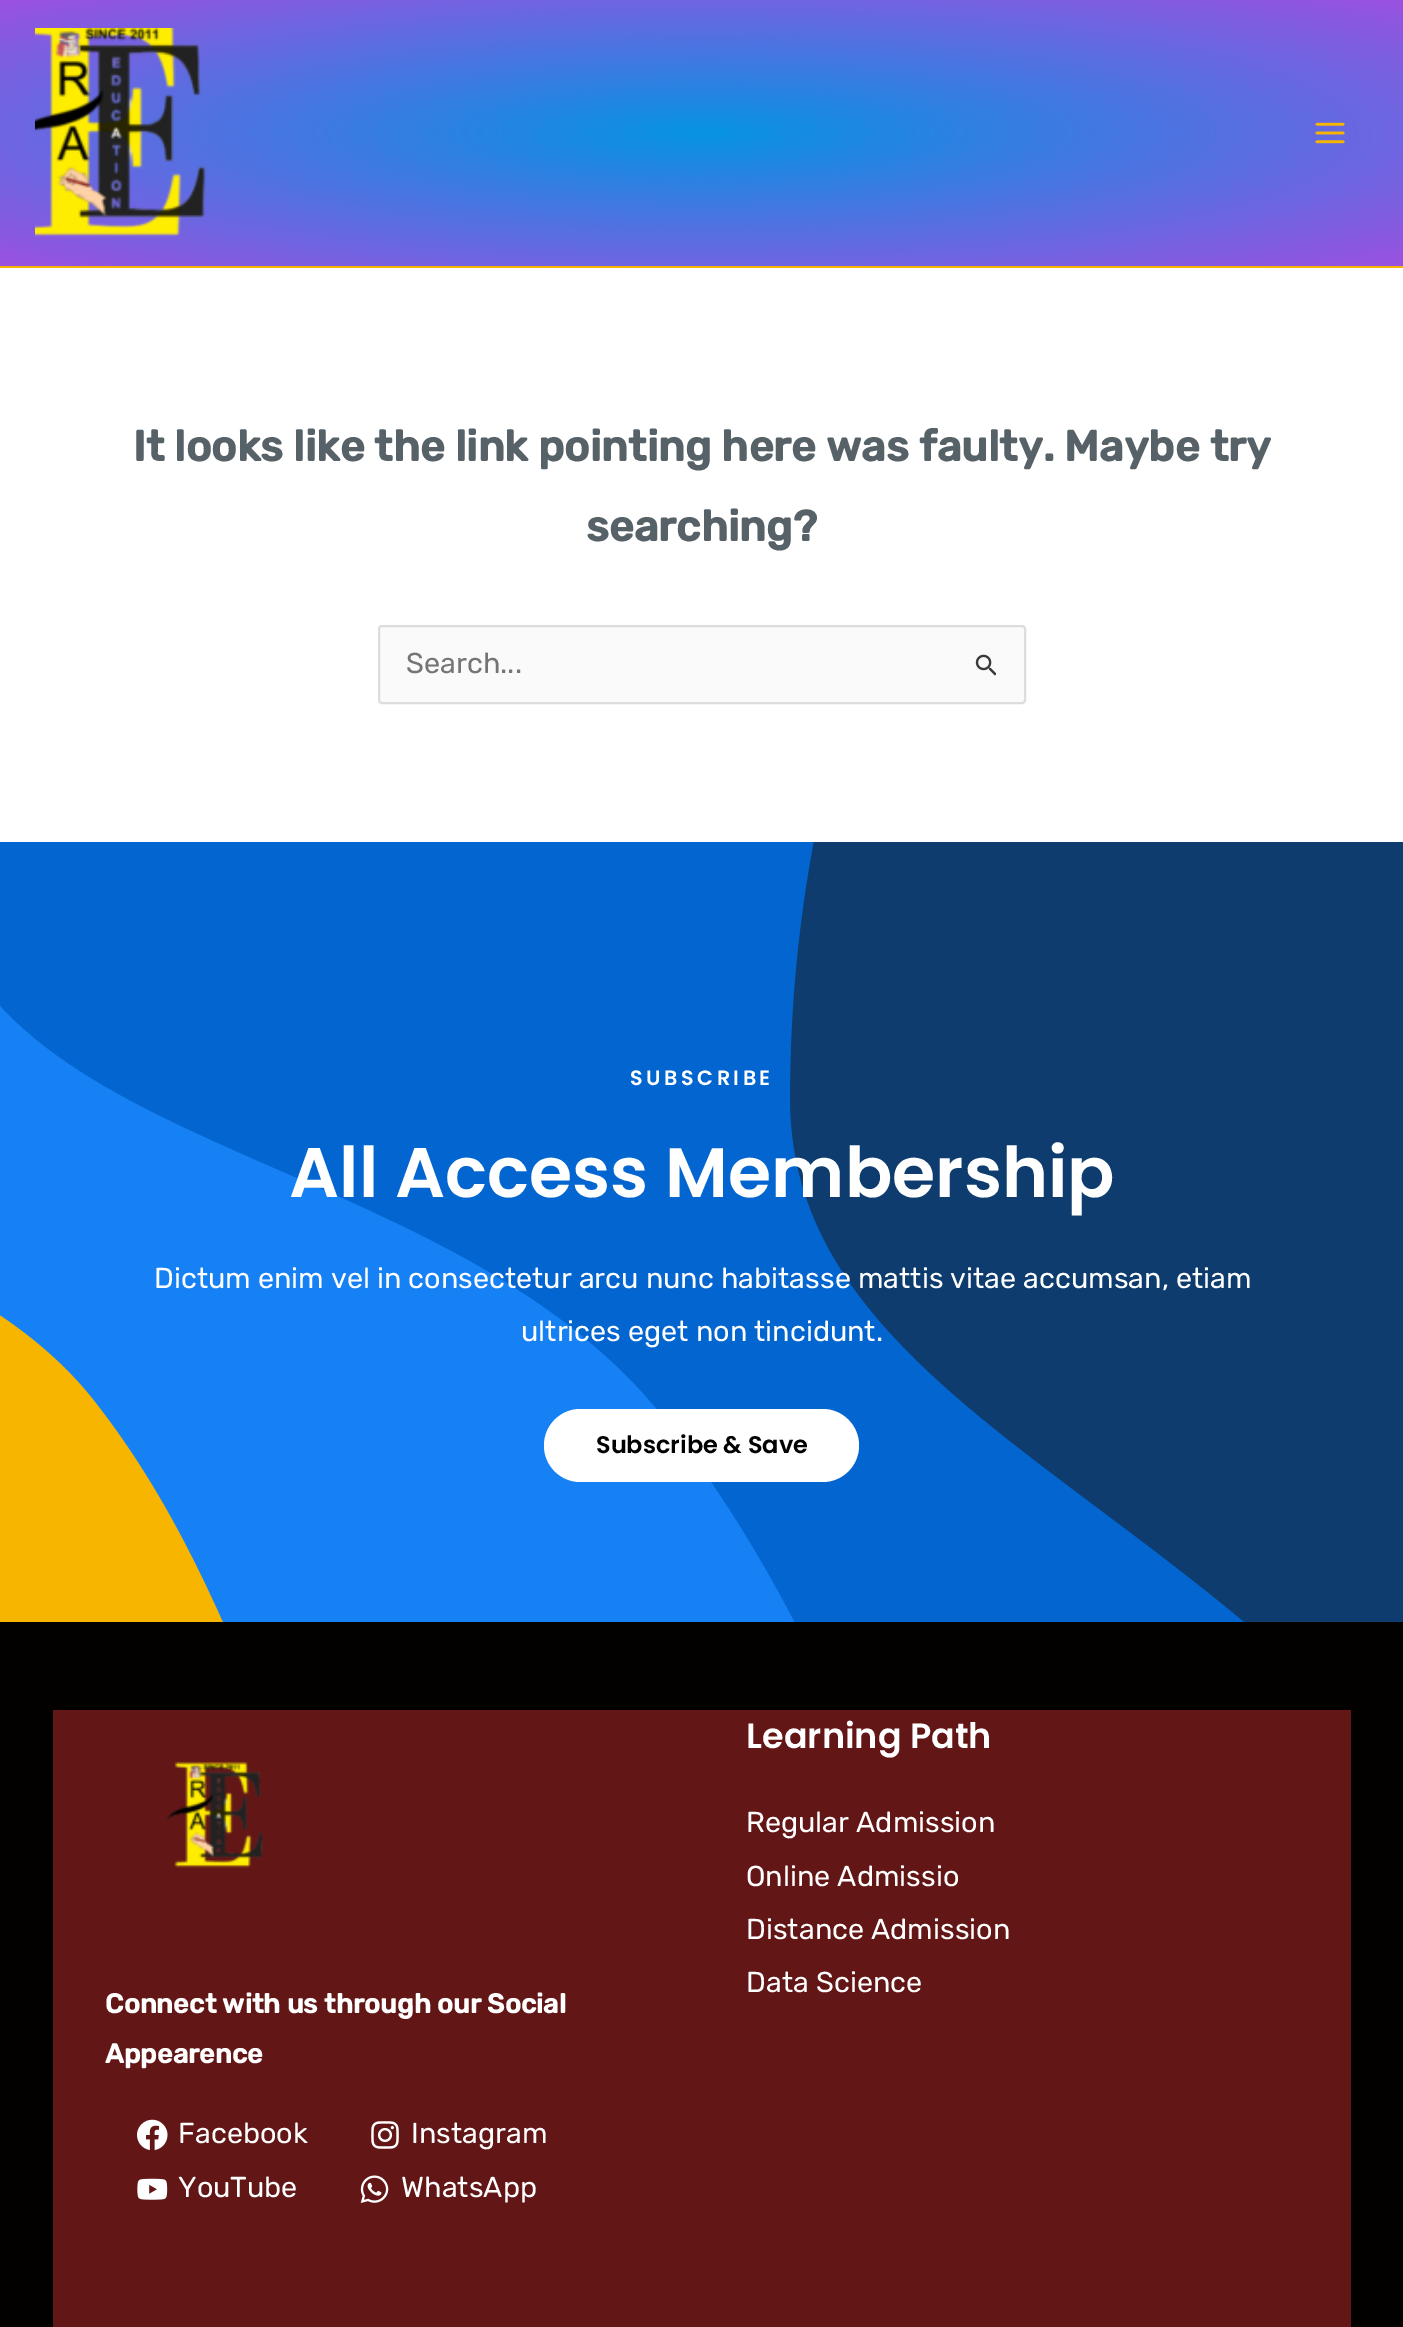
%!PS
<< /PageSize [1403 2327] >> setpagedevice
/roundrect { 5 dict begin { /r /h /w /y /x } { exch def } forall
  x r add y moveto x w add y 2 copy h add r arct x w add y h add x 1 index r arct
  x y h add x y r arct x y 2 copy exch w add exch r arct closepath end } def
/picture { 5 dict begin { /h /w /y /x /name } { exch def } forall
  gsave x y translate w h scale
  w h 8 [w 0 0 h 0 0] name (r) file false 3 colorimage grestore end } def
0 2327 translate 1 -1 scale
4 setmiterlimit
1 setgray
0 0 1403 2327 rectfill
gsave newpath 0 0 moveto 1403 0 lineto 1403 266 lineto 0 266 lineto closepath clip newpath 702 133 translate 992 188 scale
<< /ShadingType 3 /ColorSpace /DeviceRGB /Coords [0 0 0 0 0 1] /Extend [true true] /Function << /FunctionType 2 /Domain [0 1] /C0 [0.024 0.576 0.89] /C1 [0.608 0.318 0.878] /N 1 >> >> shfill grestore
0.969 0.71 0 setrgbcolor
0 266 1403 2 rectfill
(img1.rgb) 35 28 172 209 picture
(img2.rgb) 1315 122 30 22 picture
/Rubik-Bold [43.1 0 0 -43.1 0 0] selectfont
0.341 0.38 0.408 setrgbcolor
133 461 moveto (It looks like the link pointing here was faulty. Maybe try) show
586 541 moveto (searching?) show
0.98 setgray
379 626 646 77 3 roundrect gsave fill grestore
0.867 setgray
2 setlinewidth
stroke
/Rubik-Regular [28.75 0 0 -28.75 0 0] selectfont
0.459 setgray
406 673 moveto (Search...) show
(img3.rgb) 975 654 21 22 picture
(img4.rgb) 0 842 1403 780 picture
/Poppins-SemiBold [20.75 0 0 -20.75 0 0] selectfont
1 setgray
630 1085 moveto 3.5 0 (SUBSCRIBE) ashow
/Poppins-SemiBold [70 0 0 -70 0 0] selectfont
289 1197 moveto (All Access Membership) show
/Rubik-Regular [28.75 0 0 -28.75 0 0] selectfont
154 1288 moveto (Dictum enim vel in consectetur arcu nunc habitasse mattis vitae accumsan, etiam) show
521 1341 moveto (ultrices eget non tincidunt.) show
544 1409 315 73 36.5 roundrect fill
/Poppins-SemiBold [24 0 0 -24 0 0] selectfont
0.012 0 0 setrgbcolor
596 1453 moveto (Subscribe & Save) show
0 1622 1403 705 rectfill
0.388 0.086 0.086 setrgbcolor
53 1710 1298 617 rectfill
/Poppins-SemiBold [35 0 0 -35 0 0] selectfont
1 setgray
746 1748 moveto (Learning Path) show
/Rubik-Regular [28.75 0 0 -28.75 0 0] selectfont
746 1832 moveto (Regular Admission) show
746 1886 moveto (Online Admissio) show
746 1939 moveto (Distance Admission) show
746 1992 moveto (Data Science) show
(img5.rgb) 166 1761 97 107 picture
/Rubik-Bold [27.1 0 0 -27.1 0 0] selectfont
105 2013 moveto (Connect with us through our Social) show
105 2063 moveto (Appearence) show
(img6.rgb) 137 2119 31 31 picture
/Rubik-Regular [28.75 0 0 -28.75 0 0] selectfont
178 2143 moveto (Facebook) show
(img7.rgb) 371 2121 28 28 picture
411 2143 moveto (Instagram) show
(img8.rgb) 137 2178 31 22 picture
178 2197 moveto (YouTube) show
(img9.rgb) 360 2175 29 28 picture
401 2197 moveto (WhatsApp) show
showpage
